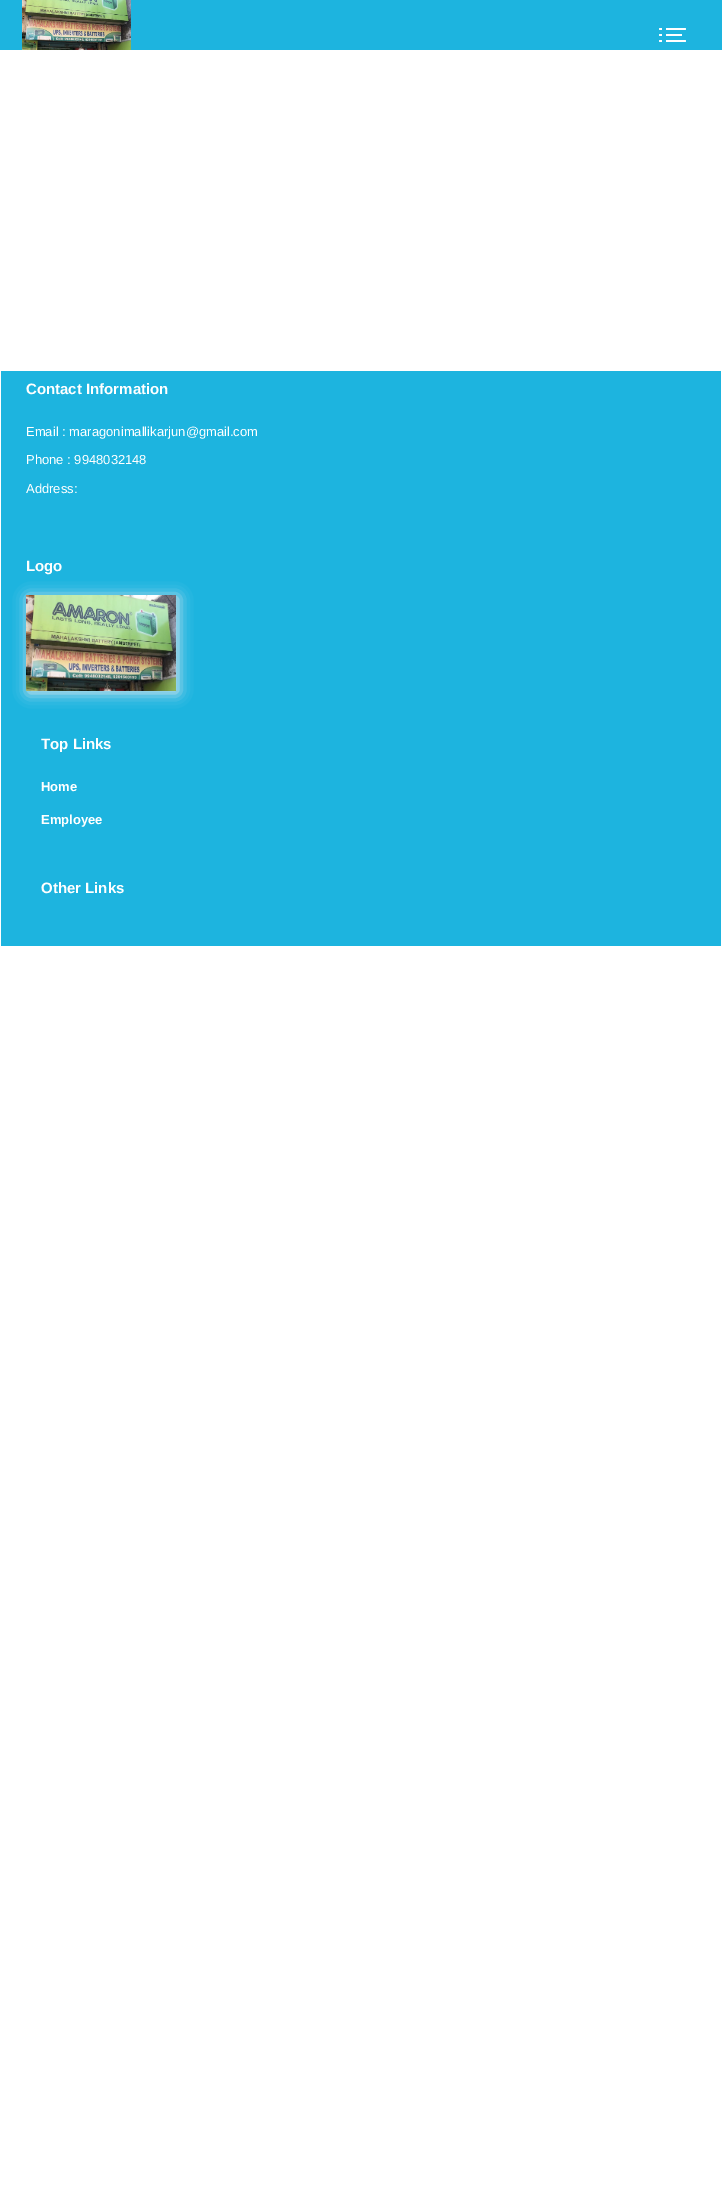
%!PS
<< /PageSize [722 2196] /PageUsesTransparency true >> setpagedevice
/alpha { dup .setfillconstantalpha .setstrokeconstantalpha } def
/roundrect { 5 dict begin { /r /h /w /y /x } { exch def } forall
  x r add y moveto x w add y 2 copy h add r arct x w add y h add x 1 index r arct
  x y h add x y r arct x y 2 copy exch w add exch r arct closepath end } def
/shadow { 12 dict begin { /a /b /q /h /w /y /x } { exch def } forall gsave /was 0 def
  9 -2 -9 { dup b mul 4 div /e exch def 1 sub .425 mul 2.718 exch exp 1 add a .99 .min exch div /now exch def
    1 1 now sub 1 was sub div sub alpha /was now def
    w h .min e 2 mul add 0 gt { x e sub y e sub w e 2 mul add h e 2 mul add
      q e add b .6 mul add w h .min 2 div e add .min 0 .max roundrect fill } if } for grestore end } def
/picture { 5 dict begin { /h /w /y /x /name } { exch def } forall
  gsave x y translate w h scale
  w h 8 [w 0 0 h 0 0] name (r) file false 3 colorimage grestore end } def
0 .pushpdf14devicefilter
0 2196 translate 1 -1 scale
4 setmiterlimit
1 setgray
0 0 722 2196 rectfill
0.114 0.706 0.875 setrgbcolor
0 0 722 50 rectfill
(img1.rgb) 22 0 109 50 picture
1 setgray
659 28 27 2 1 roundrect fill
0.114 0.706 0.875 setrgbcolor
662 28 4 2 rectfill
1 setgray
659 34 27 2 1 roundrect fill
0.114 0.706 0.875 setrgbcolor
662 34 4 2 rectfill
682 34 4 2 rectfill
1 setgray
659 40 27 2 1 roundrect fill
0.114 0.706 0.875 setrgbcolor
662 40 4 2 rectfill
1 371 720 575 rectfill
/LiberationSans-Bold [15 0 0 -15 0 0] selectfont
1 setgray
26 394 moveto (Contact Information) show
/LiberationSans-Regular [13 0 0 -13 0 0] selectfont
26 436 moveto (Email : maragonimallikarjun@gmail.com) show
26 464 moveto (Phone : 9948032148) show
26 493 moveto (Address:) show
/LiberationSans-Bold [15 0 0 -15 0 0] selectfont
26 571 moveto (Logo) show
0.941 0.922 0.941 setrgbcolor
28 597 150 96 0 7 1 shadow
(img2.rgb) 26 595 150 96 picture
1 setgray
41 749 moveto (Top Links) show
/LiberationSans-Bold [13 0 0 -13 0 0] selectfont
41 791 moveto (Home) show
41 824 moveto (Employee) show
/LiberationSans-Bold [15 0 0 -15 0 0] selectfont
41 893 moveto (Other Links) show
.poppdf14devicefilter showpage
